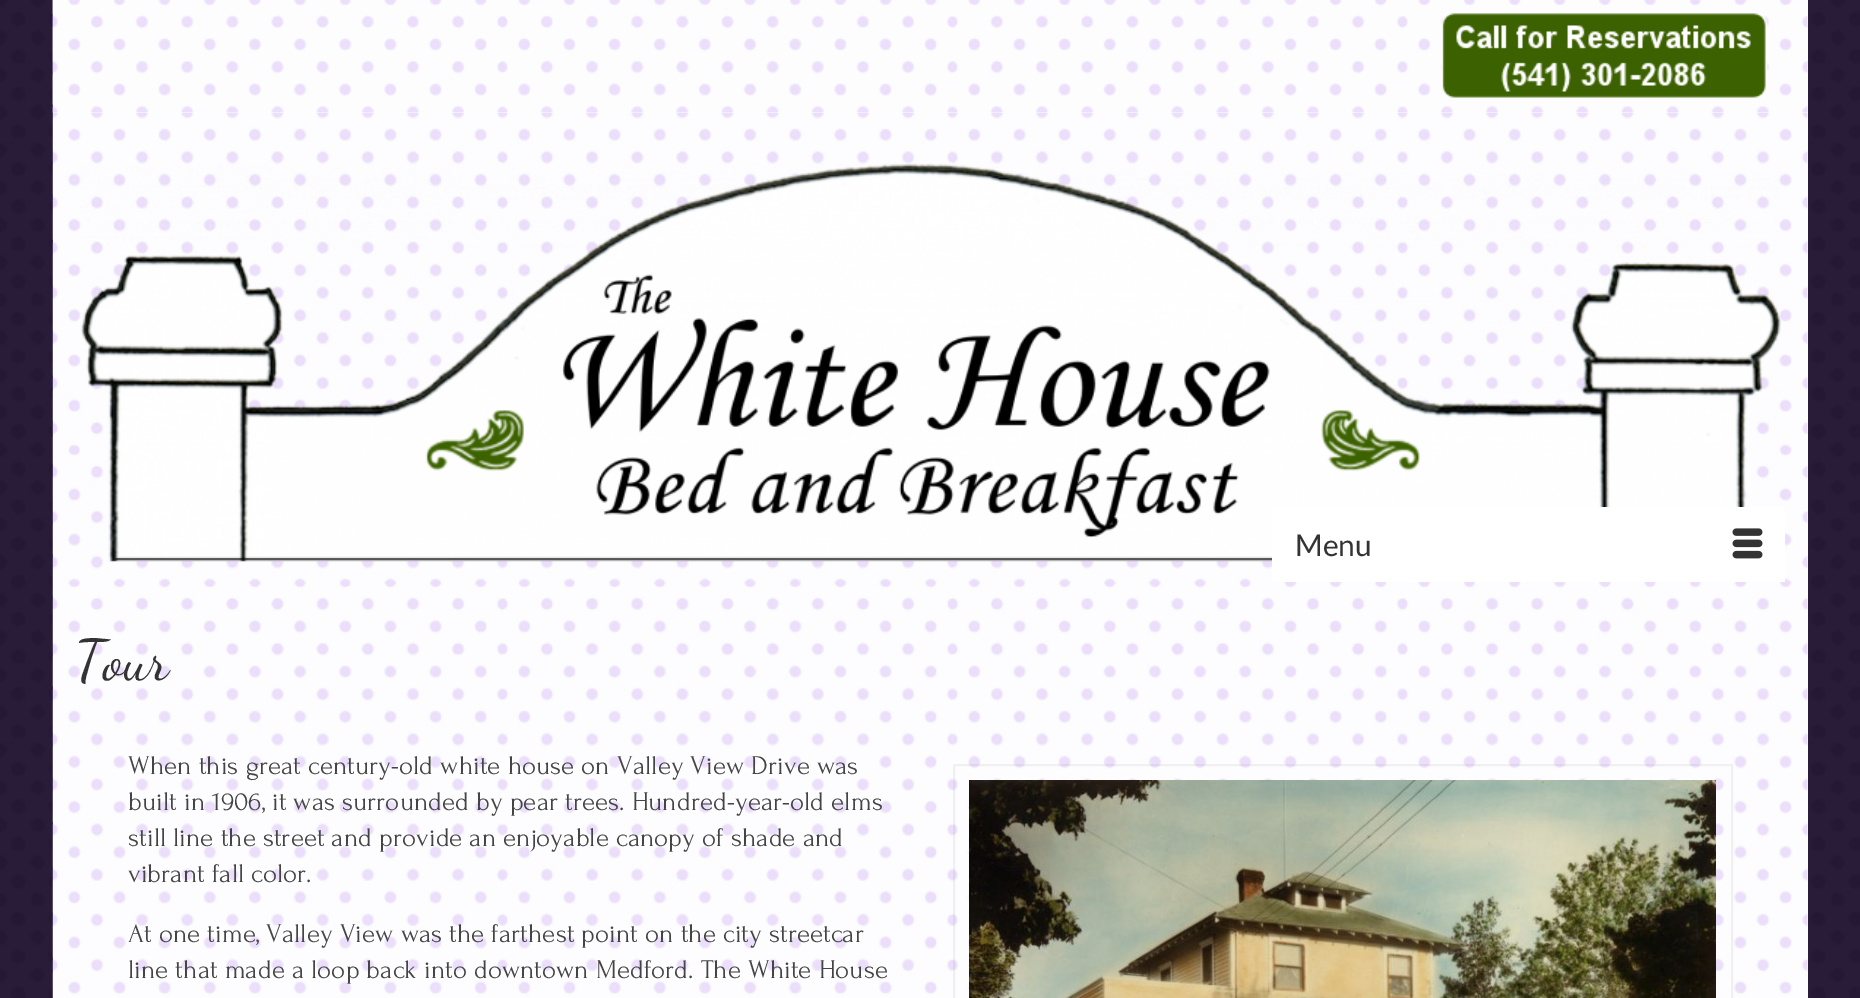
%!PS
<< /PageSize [1860 998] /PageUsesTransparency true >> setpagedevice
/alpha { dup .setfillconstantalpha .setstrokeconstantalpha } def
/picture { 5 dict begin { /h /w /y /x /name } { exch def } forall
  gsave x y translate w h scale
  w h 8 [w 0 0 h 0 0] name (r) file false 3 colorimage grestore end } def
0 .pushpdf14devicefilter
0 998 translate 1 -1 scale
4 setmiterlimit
1 setgray
0 0 1860 998 rectfill
(img1.rgb) 0 0 1860 998 picture
53 113 1755 885 rectfill
(img2.rgb) 52 0 1756 582 picture
53 0 1755 113 rectfill
(img3.rgb) 52 0 1756 113 picture
(img4.rgb) 1441 13 327 85 picture
(img5.rgb) 80 163 1701 399 picture
1272 507 513 75 rectfill
/Lato-Regular [30 0 0 -30 0 0] selectfont
0.2 setgray
1295 556 moveto (Menu) show
(img6.rgb) 1732 528 31 31 picture
(img7.rgb) 52 582 1756 416 picture
/DancingScript-Regular [57 0 0 -57 0 0] selectfont
75 679 moveto (Tour) show
/Forum-Regular [27 0 0 -27 0 0] selectfont
0.267 setgray
128 774 moveto (When this great century-old white house on Valley View Drive was) show
128 810 moveto (built in 1906, it was surrounded by pear trees. Hundred-year-old elms) show
128 846 moveto (still line the street and provide an enjoyable canopy of shade and) show
128 882 moveto (vibrant fall color.) show
128 942 moveto (At one time, Valley View was the farthest point on the city streetcar) show
128 978 moveto (line that made a loop back into downtown Medford. The White House) show
0.05 alpha
0 setgray
2 setlinewidth
954 765 778 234 rectstroke
1 alpha
(img8.rgb) 969 780 747 218 picture
.poppdf14devicefilter showpage
